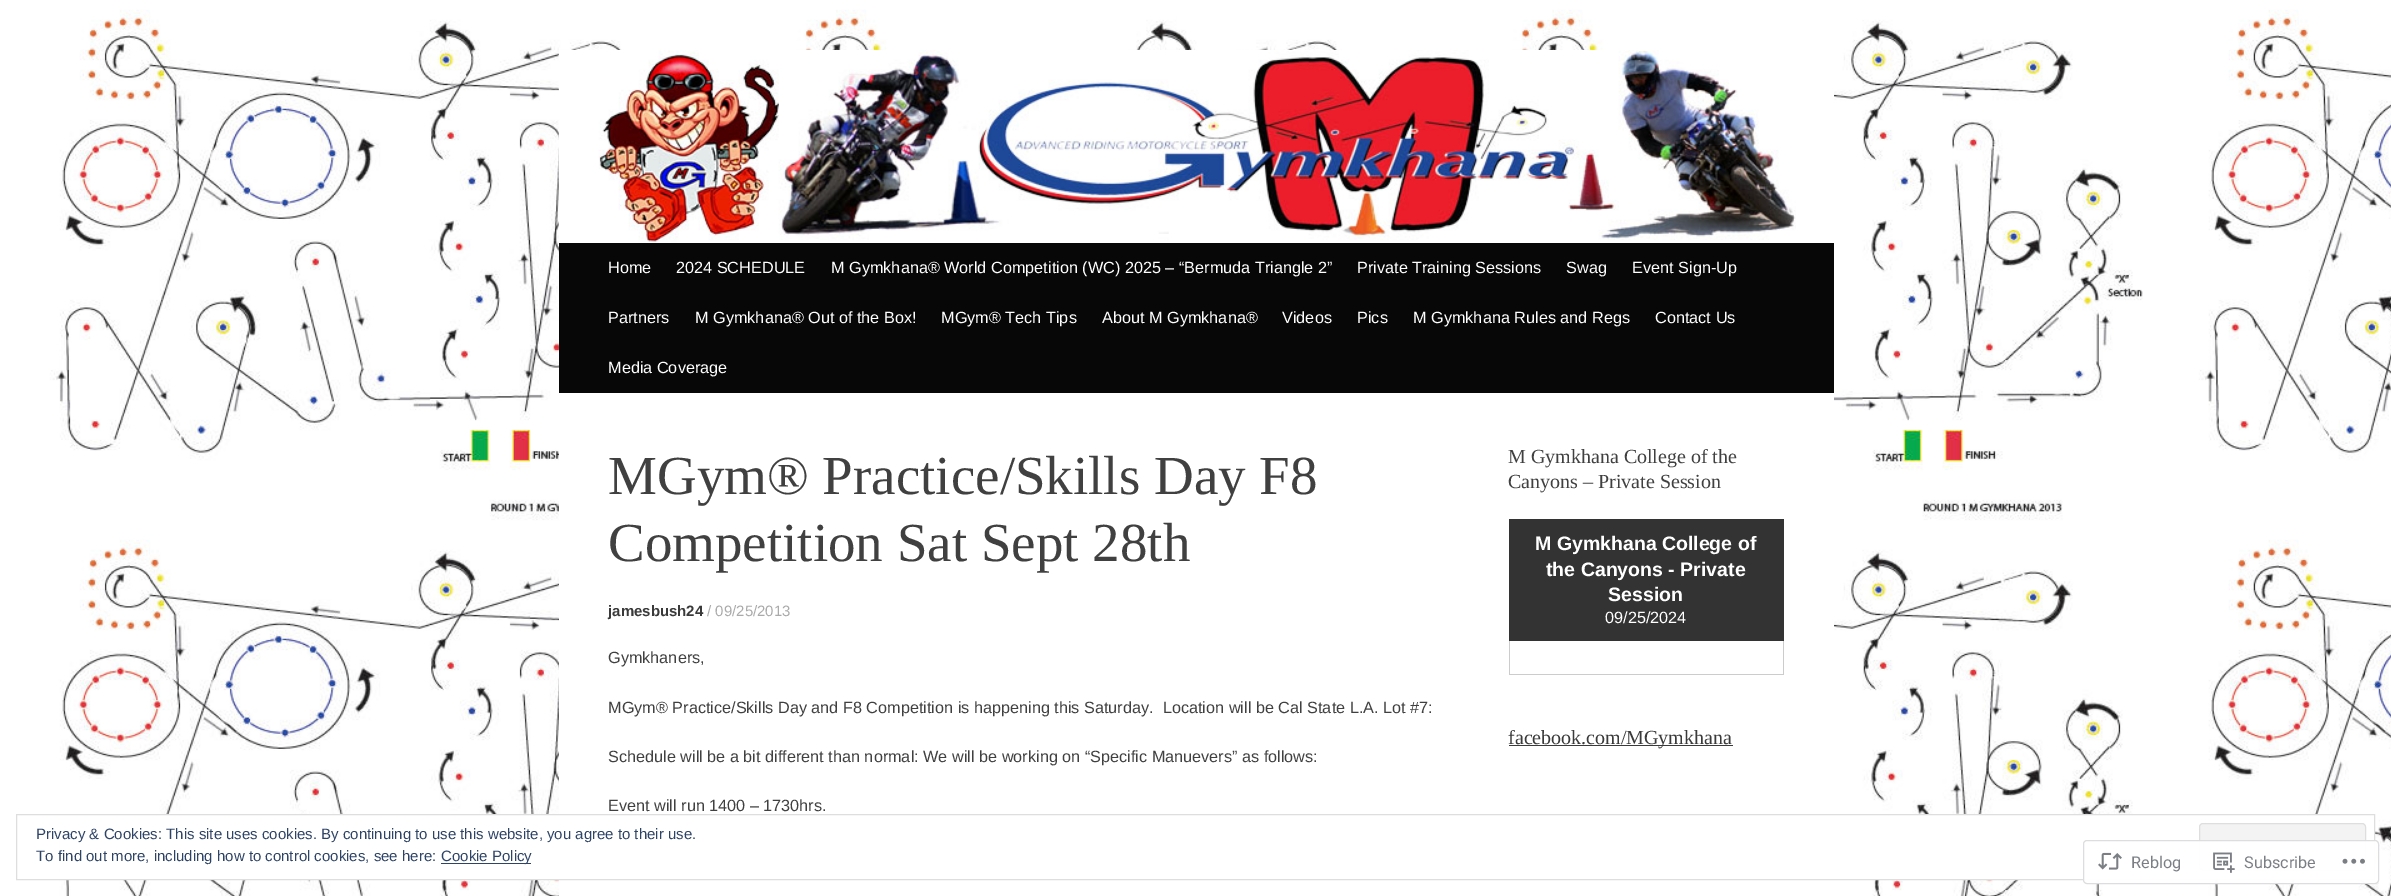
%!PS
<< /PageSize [2391 896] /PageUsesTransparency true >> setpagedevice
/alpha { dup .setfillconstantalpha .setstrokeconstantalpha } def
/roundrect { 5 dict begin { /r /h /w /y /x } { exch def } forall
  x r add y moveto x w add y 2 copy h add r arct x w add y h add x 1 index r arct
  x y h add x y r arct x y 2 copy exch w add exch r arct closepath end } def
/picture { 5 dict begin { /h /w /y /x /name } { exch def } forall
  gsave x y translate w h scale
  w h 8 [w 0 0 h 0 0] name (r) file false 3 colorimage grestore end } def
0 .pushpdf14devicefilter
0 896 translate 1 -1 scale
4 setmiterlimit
1 setgray
0 0 2391 896 rectfill
(img1.rgb) 0 0 2391 896 picture
559 50 1275 846 rectfill
(img2.rgb) 558 50 1238 193 picture
0.027 setgray
559 243 1275 150 rectfill
/LiberationSans-Regular [16.25 0 0 -16.25 0 0] selectfont
1 setgray
608 273 moveto (Home) show
676 273 moveto (2024 SCHEDULE) show
831 273 moveto (M Gymkhana® World Competition \(WC\) 2025 – “Bermuda Triangle 2”) show
1357 273 moveto (Private Training Sessions) show
1566 273 moveto (Swag) show
1632 273 moveto (Event Sign-Up) show
608 323 moveto (Partners) show
695 323 moveto (M Gymkhana® Out of the Box!) show
941 323 moveto (MGym® Tech Tips) show
1102 323 moveto (About M Gymkhana®) show
1282 323 moveto (Videos) show
1357 323 moveto (Pics) show
1413 323 moveto (M Gymkhana Rules and Regs) show
1655 323 moveto (Contact Us) show
608 373 moveto (Media Coverage) show
/LiberationSerif-Regular [55 0 0 -55 0 0] selectfont
0.251 setgray
608 494 moveto (MGym® Practice/Skills Day F8) show
608 561 moveto (Competition Sat Sept 28th) show
/LiberationSans-Bold [15 0 0 -15 0 0] selectfont
0.227 setgray
608 616 moveto (jamesbush24) show
/LiberationSans-Regular [15 0 0 -15 0 0] selectfont
0.667 setgray
707 616 moveto (/ 09/25/2013) show
/LiberationSans-Regular [16.25 0 0 -16.25 0 0] selectfont
0.251 setgray
608 663 moveto (Gymkhaners,) show
608 713 moveto (MGym® Practice/Skills Day and F8 Competition is happening this Saturday.  Location will be Cal State L.A. Lot #7:) show
608 762 moveto (Schedule will be a bit different than normal: We will be working on “Specific Manuevers” as follows:) show
608 811 moveto (Event will run 1400 – 1730hrs.) show
/LiberationSerif-Regular [20 0 0 -20 0 0] selectfont
1508 463 moveto (M Gymkhana College of the) show
1508 488 moveto (Canyons – Private Session) show
0.2 setgray
1509 519 275 122 rectfill
/LiberationSans-Bold [19.5 0 0 -19.5 0 0] selectfont
1 setgray
1535 550 moveto (M Gymkhana College of) show
1546 576 moveto (the Canyons - Private) show
1608 601 moveto (Session) show
/LiberationSans-Regular [16.25 0 0 -16.25 0 0] selectfont
1605 623 moveto (09/25/2024) show
0.8 setgray
1783 641 1 34 rectfill
1509 674 275 1 rectfill
1509 641 1 34 rectfill
0.227 setgray
1509 745 224 1 rectfill
/LiberationSerif-Regular [20 0 0 -20 0 0] selectfont
1508 744 moveto (facebook.com/MGymkhana) show
1 setgray
60 815 2314 64 rectfill
0.871 setgray
16.5 814.5 2358 65 rectstroke
/LiberationSans-Regular [15 0 0 -15 0 0] selectfont
0.18 0.267 0.404 setrgbcolor
36 839 moveto (Privacy & Cookies: This site uses cookies. By continuing to use this website, you agree to their use.) show
0.953 setgray
2199.5 823.5 166 47 3.5 roundrect gsave fill grestore
0.871 setgray
stroke
0.18 0.267 0.404 setrgbcolor
36 861 moveto (To find out more, including how to control cookies, see here:) show
441 863 90 1 rectfill
441 861 moveto (Cookie Policy) show
0.98 alpha
1 setgray
2083 840 296 44 4 roundrect fill
0.863 0.863 0.871 setrgbcolor
2083.5 840.5 295 43 3.5 roundrect stroke
1 alpha
(img3.rgb) 2098 852 24 18 picture
/Roboto-Regular [16.25 0 0 -16.25 0 0] selectfont
0.482 0.498 0.522 setrgbcolor
2131 868 moveto (Reblog) show
(img4.rgb) 2213 852 22 21 picture
2244 868 moveto (Subscribe) show
(img5.rgb) 2342 858 23 6 picture
.poppdf14devicefilter showpage
